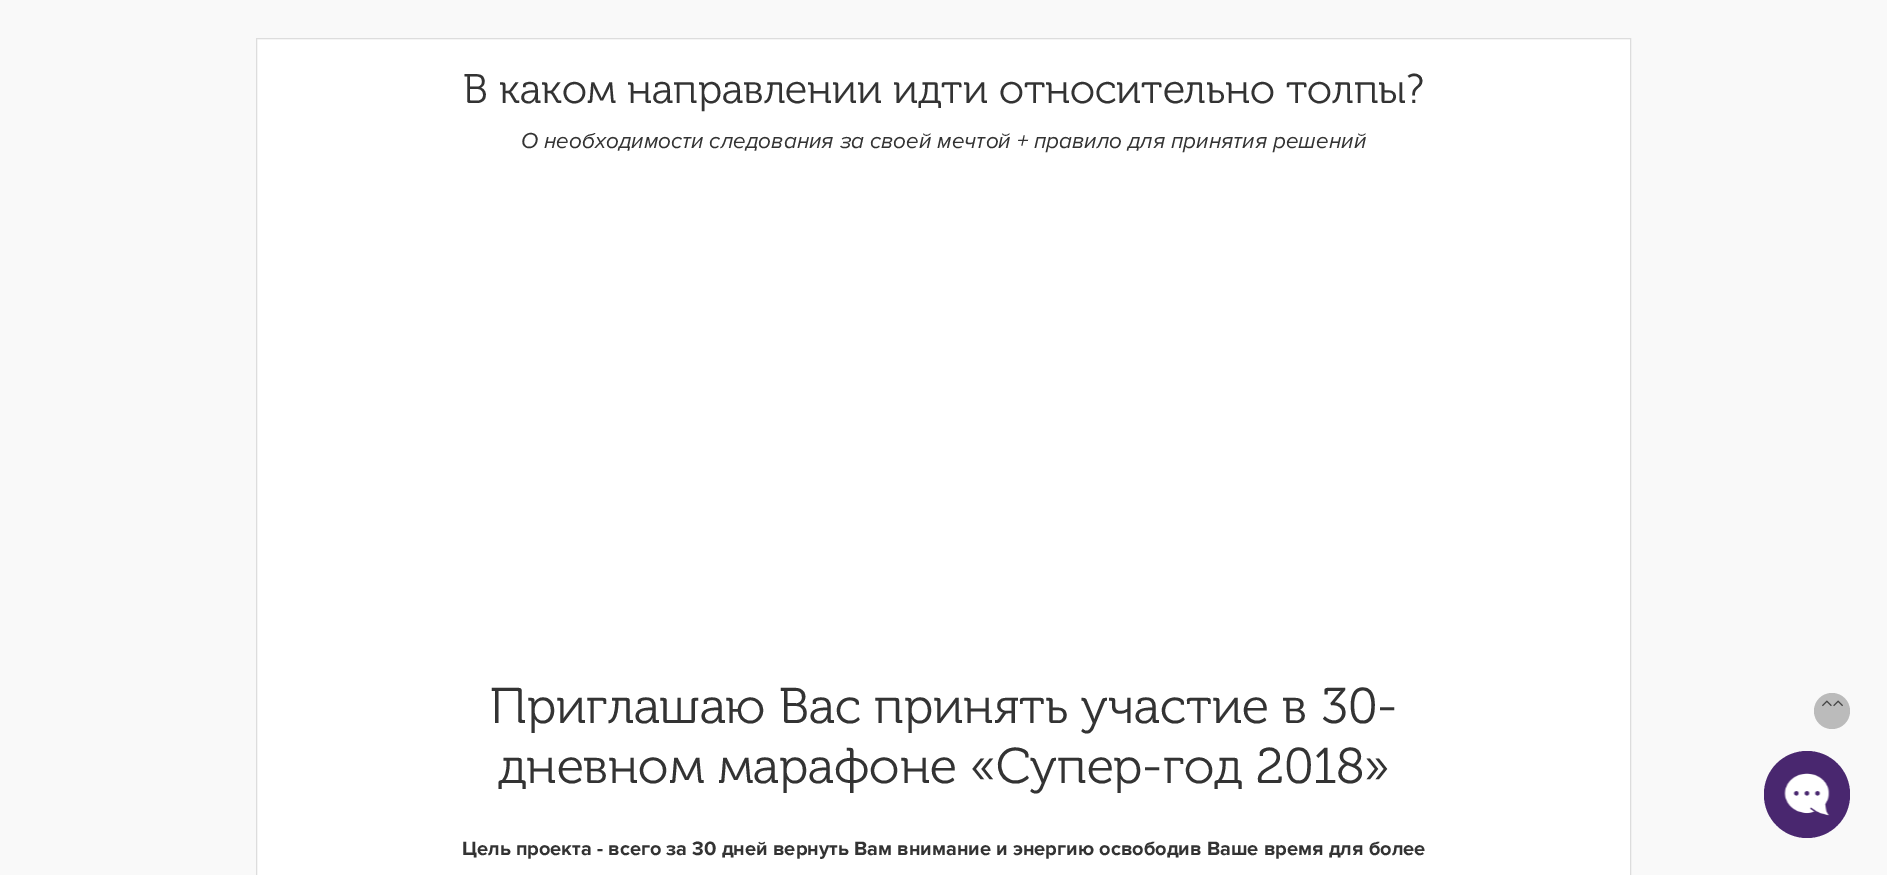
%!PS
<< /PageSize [1887 875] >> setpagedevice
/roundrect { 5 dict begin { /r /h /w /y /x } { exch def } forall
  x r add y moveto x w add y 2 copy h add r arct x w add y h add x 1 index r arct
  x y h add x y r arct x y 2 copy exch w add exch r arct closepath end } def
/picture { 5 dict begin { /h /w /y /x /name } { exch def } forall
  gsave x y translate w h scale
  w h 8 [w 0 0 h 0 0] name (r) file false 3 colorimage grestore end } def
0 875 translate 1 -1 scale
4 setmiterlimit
0.976 setgray
0 0 1887 875 rectfill
1 setgray
newpath 256.5 38.5 moveto 1630.5 38.5 lineto 1630.5 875.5 lineto 256.5 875.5 lineto closepath gsave fill grestore
0.867 setgray
stroke
/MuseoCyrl-Light [41.25 0 0 -41.25 0 0] selectfont
0.2 setgray
463 103 moveto (В каком направлении идти относительно толпы?) show
/ProximaNova-Italic [22.5 0 0 -22.5 0 0] selectfont
521 148 moveto (О необходимости следования за своей мечтой + правило для принятия решений) show
/MuseoCyrl-Light [50 0 0 -50 0 0] selectfont
490 723 moveto (Приглашаю Вас принять участие в 30-) show
498 783 moveto (дневном марафоне «Супер-год 2018») show
/ProximaNova-Bold [20 0 0 -20 0 0] selectfont
462 855 moveto (Цель проекта - всего за 30 дней вернуть Вам внимание и энергию освободив Ваше время для более) show
0.733 setgray
newpath 1832 711 18 0 360 arc closepath fill
(img1.rgb) 1822 700 10 7 picture
(img2.rgb) 1833 700 10 7 picture
0.286 0.153 0.435 setrgbcolor
1764 751 86 87 43 roundrect fill
(img3.rgb) 1784 773 46 43 picture
showpage
